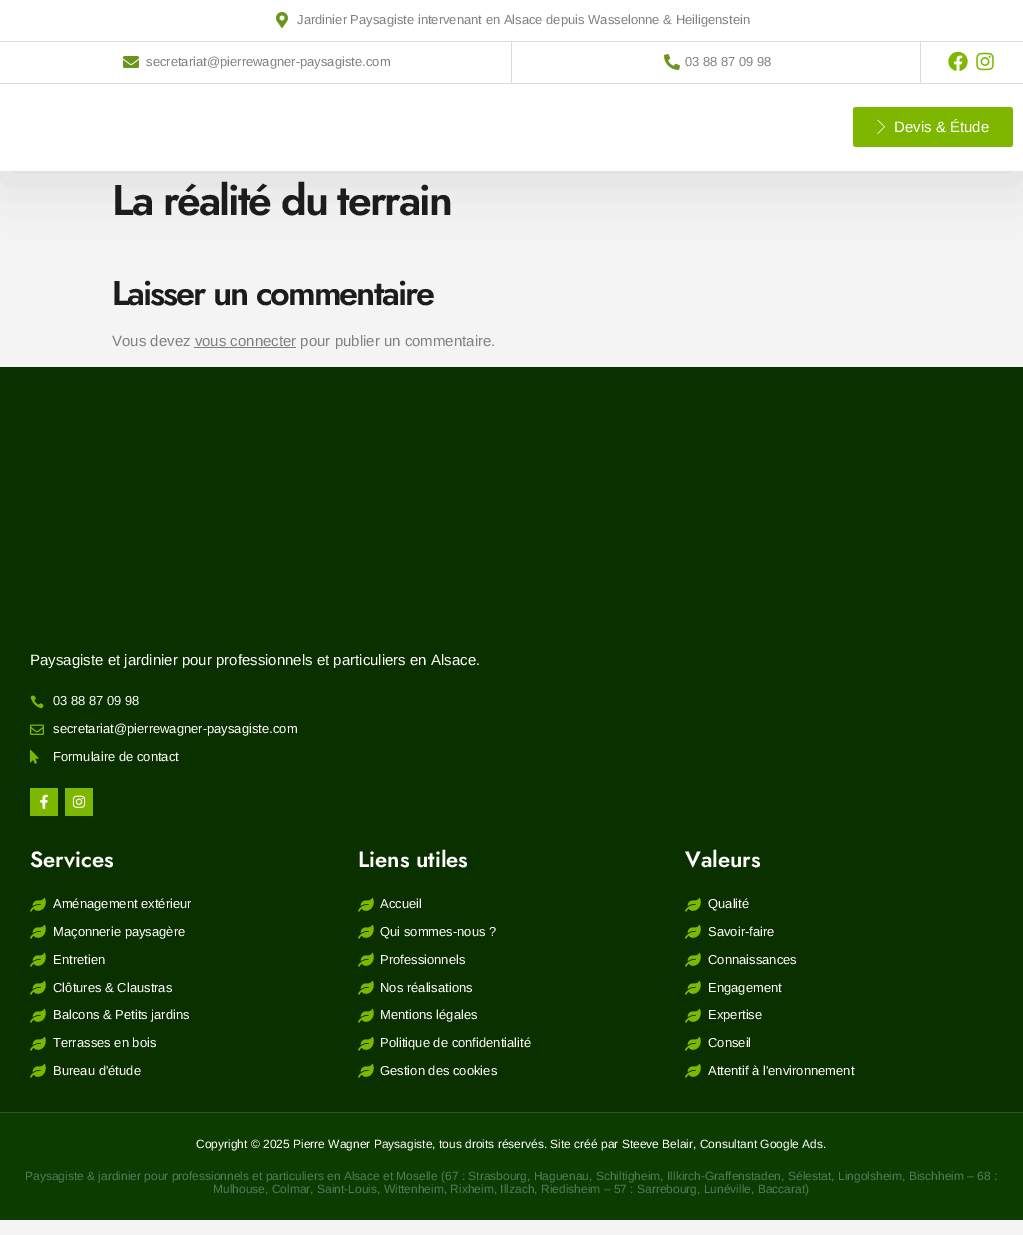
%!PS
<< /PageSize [1023 1235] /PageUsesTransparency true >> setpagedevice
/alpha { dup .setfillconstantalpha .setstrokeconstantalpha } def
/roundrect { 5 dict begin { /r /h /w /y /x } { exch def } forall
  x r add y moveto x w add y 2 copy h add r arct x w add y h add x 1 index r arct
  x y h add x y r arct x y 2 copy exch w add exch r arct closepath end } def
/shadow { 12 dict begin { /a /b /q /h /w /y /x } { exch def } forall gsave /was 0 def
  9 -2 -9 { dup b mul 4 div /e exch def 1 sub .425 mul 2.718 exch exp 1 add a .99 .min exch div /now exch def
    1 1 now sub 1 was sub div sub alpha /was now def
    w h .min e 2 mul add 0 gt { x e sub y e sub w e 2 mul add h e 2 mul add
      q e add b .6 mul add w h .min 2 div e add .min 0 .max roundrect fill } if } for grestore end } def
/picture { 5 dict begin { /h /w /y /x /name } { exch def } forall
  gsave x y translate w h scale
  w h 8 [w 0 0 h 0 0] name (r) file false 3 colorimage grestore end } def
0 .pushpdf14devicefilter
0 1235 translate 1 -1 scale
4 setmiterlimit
0.957 setgray
0 0 1023 1235 rectfill
0 setgray
0 94 1023 87 0 30 0.1 shadow
1 setgray
0 0 1023 83 rectfill
0.863 0.863 0.871 setrgbcolor
0 83 1023 1 rectfill
0 41 1023 1 rectfill
(img1.rgb) 276 12 12 16 picture
/LiberationSans-Regular [13 0 0 -13 0 0] selectfont
0.502 setgray
297 24 moveto (Jardinier Paysagiste intervenant en Alsace depuis Wasselonne & Heiligenstein) show
0.863 0.863 0.871 setrgbcolor
511 42 1 41 rectfill
(img2.rgb) 123 56 16 12 picture
0.502 setgray
146 66 moveto (secretariat@pierrewagner-paysagiste.com) show
0.863 0.863 0.871 setrgbcolor
920 42 1 41 rectfill
(img3.rgb) 664 54 16 16 picture
0.502 setgray
685 66 moveto (03 88 87 09 98) show
(img4.rgb) 948 51 20 20 picture
(img5.rgb) 976 52 18 19 picture
1 setgray
0 84 1023 87 rectfill
0.49 0.718 0 setrgbcolor
853 107 160 40 3 roundrect fill
(img6.rgb) 877 119 8 15 picture
/LiberationSans-Regular [15 0 0 -15 0 0] selectfont
1 setgray
894 132 moveto (Devis & Étude) show
/Jost-SemiBold [42.75 0 0 -42.75 0 0] selectfont
0.11 setgray
112 215 moveto -2 0 (La réalité du terrain) ashow
/Jost-SemiBold [34.25 0 0 -34.25 0 0] selectfont
112 305 moveto -2 0 (Laisser un commentaire) ashow
/LiberationSans-Regular [15 0 0 -15 0 0] selectfont
0.502 setgray
112 346 moveto (Vous devez vous connecter pour publier un commentaire.) show
194 347 102 1 rectfill
0.039 0.188 0 setrgbcolor
0 367 1023 745 rectfill
0.204 0.325 0.169 setrgbcolor
0 1112 1023 1 rectfill
1 setgray
30 665 moveto (Paysagiste et jardinier pour professionnels et particuliers en Alsace.) show
(img7.rgb) 30 695 14 14 picture
/LiberationSans-Regular [13 0 0 -13 0 0] selectfont
53 705 moveto (03 88 87 09 98) show
(img8.rgb) 30 724 14 11 picture
53 733 moveto (secretariat@pierrewagner-paysagiste.com) show
(img9.rgb) 30 749 9 15 picture
53 761 moveto (Formulaire de contact) show
0.49 0.718 0 setrgbcolor
30 788 28 28 rectfill
(img10.rgb) 40 794 8 15 picture
65 788 28 28 rectfill
(img11.rgb) 72 795 14 13 picture
/Jost-SemiBold [22 0 0 -22 0 0] selectfont
1 setgray
30 867 moveto (Services) show
(img12.rgb) 30 897 16 15 picture
/LiberationSans-Regular [13 0 0 -13 0 0] selectfont
53 908 moveto (Aménagement extérieur) show
(img12.rgb) 30 924 16 15 picture
53 936 moveto (Maçonnerie paysagère) show
(img12.rgb) 30 952 16 15 picture
53 964 moveto (Entretien) show
(img12.rgb) 30 980 16 15 picture
53 992 moveto (Clôtures & Claustras) show
(img12.rgb) 30 1008 16 15 picture
53 1019 moveto (Balcons & Petits jardins) show
(img12.rgb) 30 1036 16 15 picture
53 1047 moveto (Terrasses en bois) show
(img12.rgb) 30 1063 16 15 picture
53 1075 moveto (Bureau d'étude) show
/Jost-SemiBold [22 0 0 -22 0 0] selectfont
358 867 moveto (Liens utiles) show
(img12.rgb) 358 897 16 15 picture
/LiberationSans-Regular [13 0 0 -13 0 0] selectfont
380 908 moveto (Accueil) show
(img12.rgb) 358 924 16 15 picture
380 936 moveto (Qui sommes-nous ?) show
(img12.rgb) 358 952 16 15 picture
380 964 moveto (Professionnels) show
(img12.rgb) 358 980 16 15 picture
380 992 moveto (Nos réalisations) show
(img12.rgb) 358 1008 16 15 picture
380 1019 moveto (Mentions légales) show
(img12.rgb) 358 1036 16 15 picture
380 1047 moveto (Politique de confidentialité) show
(img12.rgb) 358 1063 16 15 picture
380 1075 moveto (Gestion des cookies) show
/Jost-SemiBold [22 0 0 -22 0 0] selectfont
685 867 moveto (Valeurs) show
(img12.rgb) 685 897 16 15 picture
/LiberationSans-Regular [13 0 0 -13 0 0] selectfont
708 908 moveto (Qualité) show
(img12.rgb) 685 924 16 15 picture
708 936 moveto (Savoir-faire) show
(img12.rgb) 685 952 16 15 picture
708 964 moveto (Connaissances) show
(img12.rgb) 685 980 16 15 picture
708 992 moveto (Engagement) show
(img12.rgb) 685 1008 16 15 picture
708 1019 moveto (Expertise) show
(img12.rgb) 685 1036 16 15 picture
708 1047 moveto (Conseil) show
(img12.rgb) 685 1063 16 15 picture
708 1075 moveto (Attentif à l'environnement) show
0.051 0.235 0 setrgbcolor
0 1113 1023 107 rectfill
/LiberationSans-Regular [12 0 0 -12 0 0] selectfont
1 setgray
196 1148 moveto (Copyright © 2025 Pierre Wagner Paysagiste, tous droits réservés. Site créé par Steeve Belair, Consultant Google Ads.) show
0.302 0.49 0.365 setrgbcolor
25 1180 moveto (Paysagiste & jardinier pour professionnels et particuliers en Alsace et Moselle \(67 : Strasbourg, Haguenau, Schiltigheim, Illkirch-Graffenstaden, Sélestat, Lingolsheim, Bischheim – 68 :) show
213 1193 moveto (Mulhouse, Colmar, Saint-Louis, Wittenheim, Rixheim, Illzach, Riedisheim – 57 : Sarrebourg, Lunéville, Baccarat\)) show
.poppdf14devicefilter showpage
